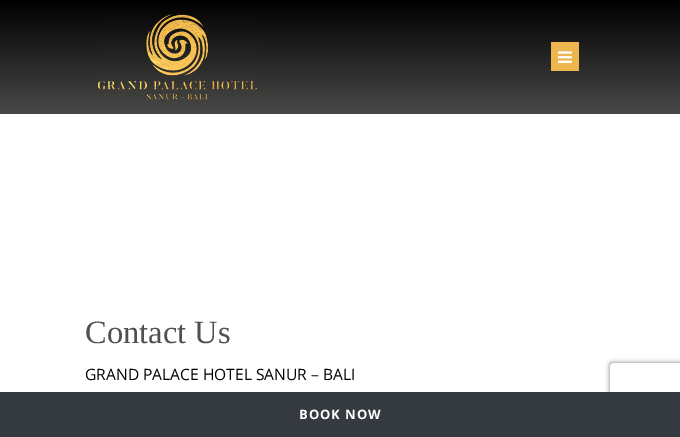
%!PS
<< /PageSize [680 437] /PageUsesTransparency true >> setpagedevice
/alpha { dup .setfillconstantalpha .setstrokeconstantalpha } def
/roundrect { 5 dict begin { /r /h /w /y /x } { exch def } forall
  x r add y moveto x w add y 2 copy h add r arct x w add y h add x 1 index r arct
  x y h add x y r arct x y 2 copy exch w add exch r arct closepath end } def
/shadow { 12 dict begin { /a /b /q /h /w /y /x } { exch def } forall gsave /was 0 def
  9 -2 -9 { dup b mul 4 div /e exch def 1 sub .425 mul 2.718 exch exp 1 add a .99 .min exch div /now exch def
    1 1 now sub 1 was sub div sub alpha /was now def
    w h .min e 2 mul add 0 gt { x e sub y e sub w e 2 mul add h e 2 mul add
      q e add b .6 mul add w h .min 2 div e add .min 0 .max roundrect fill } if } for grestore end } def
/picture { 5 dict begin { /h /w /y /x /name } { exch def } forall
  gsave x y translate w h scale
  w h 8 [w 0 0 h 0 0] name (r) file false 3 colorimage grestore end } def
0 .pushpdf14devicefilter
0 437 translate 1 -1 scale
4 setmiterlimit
1 setgray
0 0 680 437 rectfill
gsave newpath 0 0 moveto 680 0 lineto 680 114 lineto 0 114 lineto closepath clip newpath
<< /ShadingType 2 /ColorSpace /DeviceRGB /Coords [340 0 340 114] /Extend [true true] /Function << /FunctionType 2 /Domain [0 1] /C0 [0 0 0] /C1 [0.286 0.286 0.282] /N 1 >> >> shfill grestore
(img1.rgb) 98 14 159 86 picture
0.929 0.714 0.302 setrgbcolor
551 42 28 29 rectfill
(img2.rgb) 558 51 14 12 picture
/LiberationSerif-Regular [32.5 0 0 -32.5 0 0] selectfont
0.314 setgray
85 343 moveto (Contact Us) show
/OpenSans-Regular [15.6 0 0 -15.6 0 0] selectfont
0 setgray
85 380 moveto (GRAND PALACE HOTEL SANUR – BALI) show
gsave
newpath 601 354 moveto 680 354 lineto 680 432 lineto 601 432 lineto closepath 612 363 moveto 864 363 lineto 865 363 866 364 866 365 curveto 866 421 lineto 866 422 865 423 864 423 curveto 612 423 lineto 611 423 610 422 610 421 curveto 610 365 lineto 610 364 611 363 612 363 curveto closepath eoclip newpath
0.502 setgray
610 363 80 60 2 2.5 1 shadow
grestore
0.204 0.227 0.251 setrgbcolor
0 392 680 45 rectfill
/OpenSans-Bold [13 0 0 -13 0 0] selectfont
1 setgray
299 419 moveto 1 0 (BOOK NOW) ashow
.poppdf14devicefilter showpage
